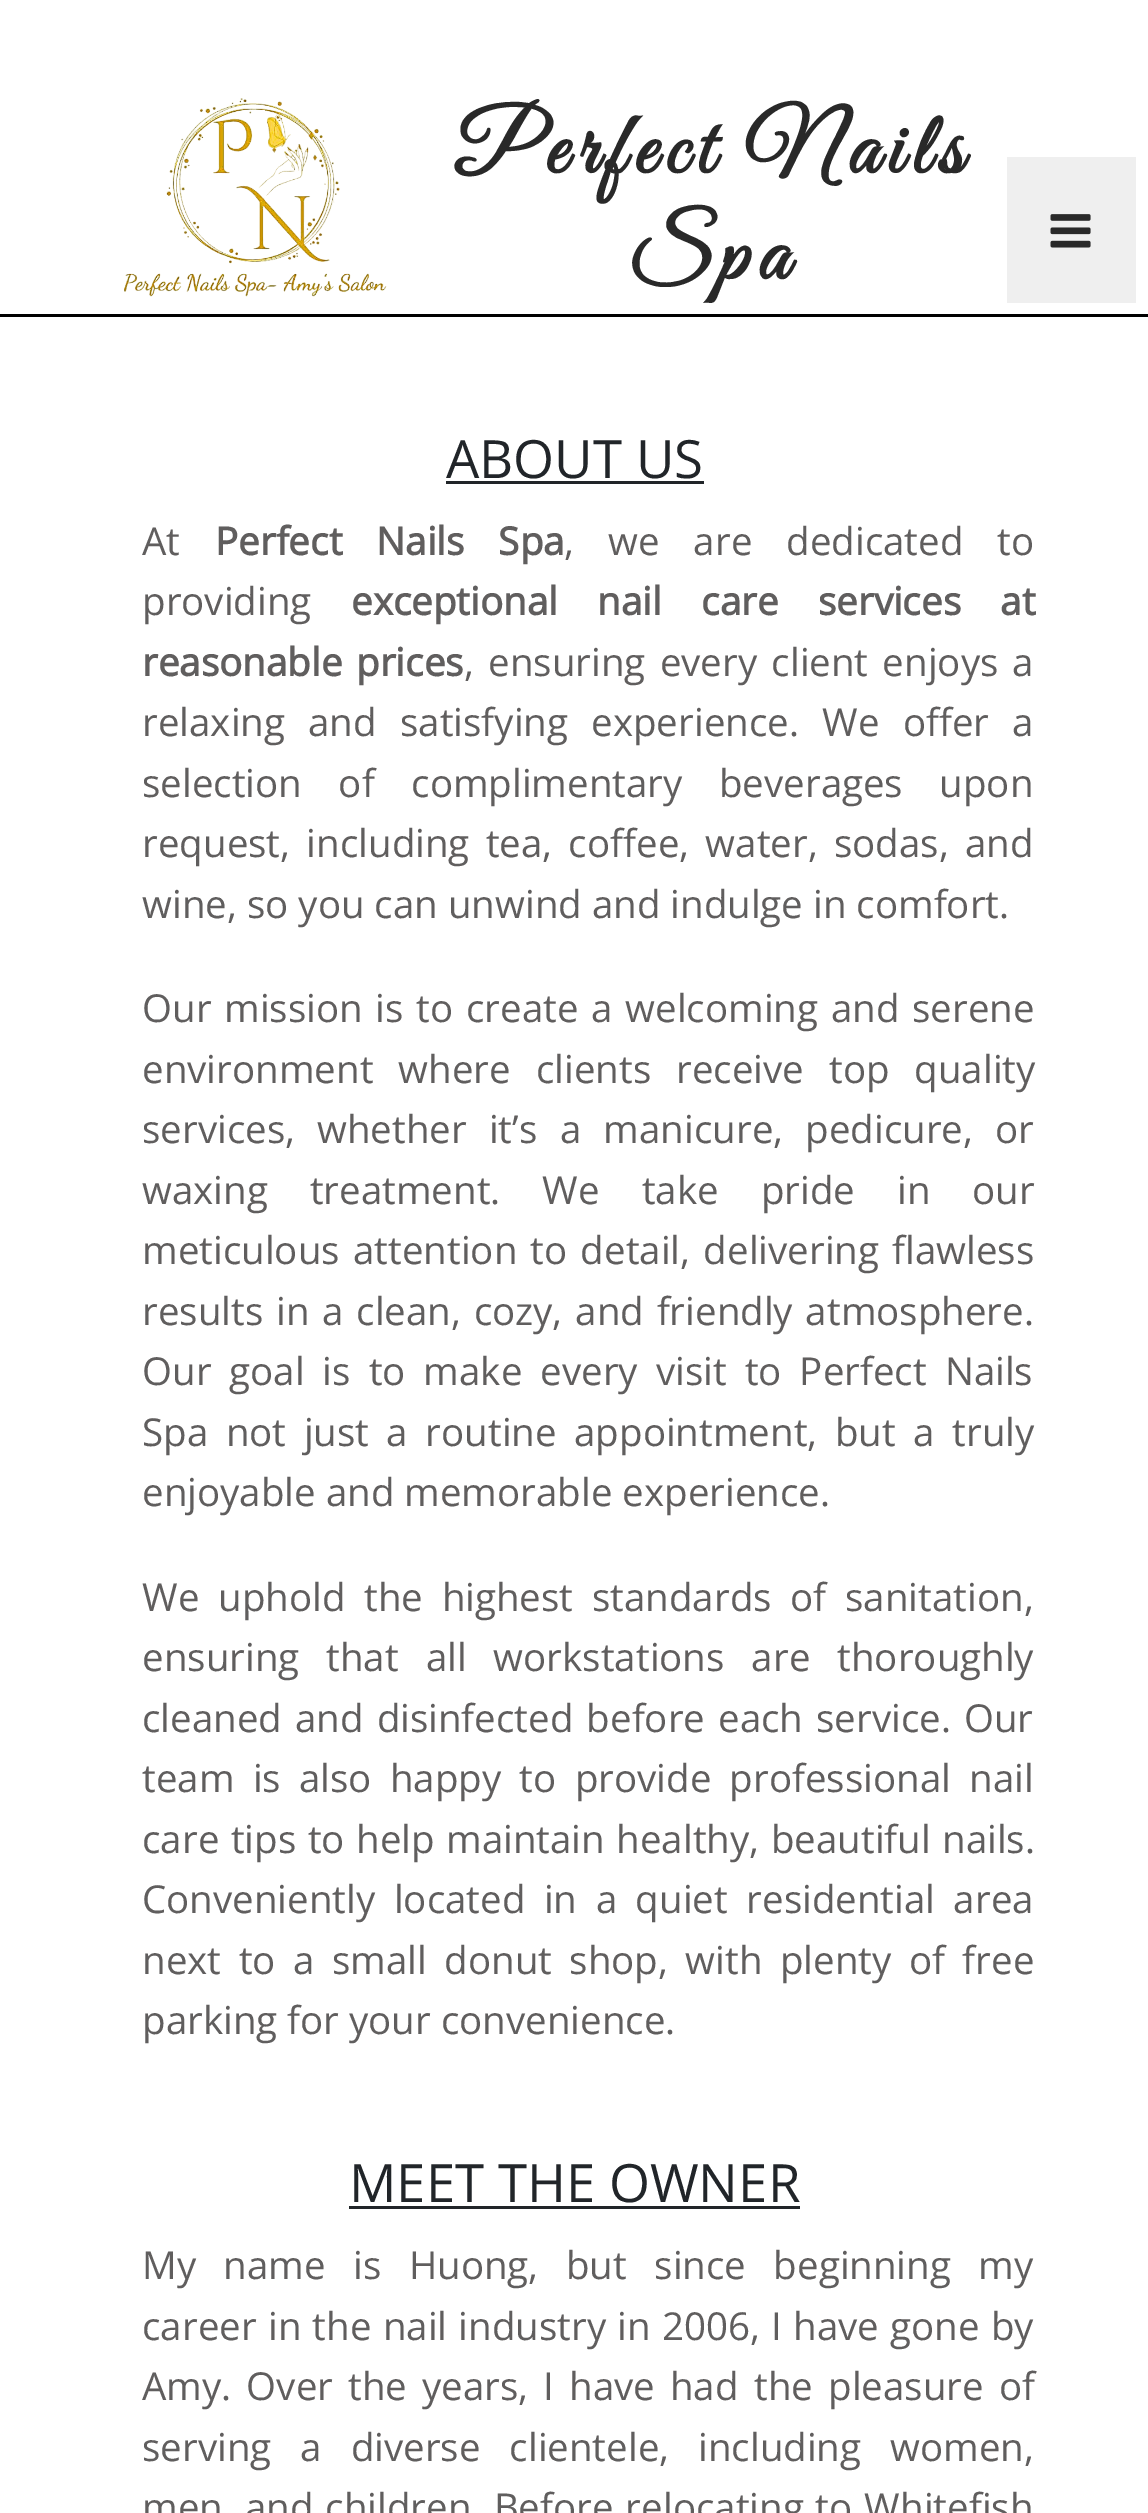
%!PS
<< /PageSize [1148 2513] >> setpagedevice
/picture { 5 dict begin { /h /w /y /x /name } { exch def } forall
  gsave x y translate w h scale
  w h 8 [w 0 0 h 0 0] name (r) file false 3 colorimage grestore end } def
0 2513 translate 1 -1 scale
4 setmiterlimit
1 setgray
0 0 1148 2513 rectfill
(img1.rgb) 124 98 263 199 picture
/GreatVibes-Bold [88 0 0 -88 0 0] selectfont
0.161 setgray
454 173 moveto 8.75 0 (Perfect Nails) ashow
628 279 moveto 8.75 0 (Spa) ashow
0 setgray
0 314 1148 3 rectfill
0.937 setgray
1007 157 129 146 rectfill
(img2.rgb) 1050 214 41 34 picture
/OpenSans-Regular [52.75 0 0 -52.75 0 0] selectfont
0.129 0.145 0.161 setrgbcolor
446 478 moveto (ABOUT US) show
446 481 258 3 rectfill
/OpenSans-Regular [38.5 0 0 -38.5 0 0] selectfont
0.376 0.369 0.369 setrgbcolor
142 555 moveto (At) show
/OpenSans-Bold [38.5 0 0 -38.5 0 0] selectfont
215 555 moveto 24 0 32 (Perfect Nails Spa) widthshow
/OpenSans-Regular [38.5 0 0 -38.5 0 0] selectfont
564 555 moveto 24 0 32 (, we are dedicated to) widthshow
142 615 moveto (providing) show
/OpenSans-Bold [38.5 0 0 -38.5 0 0] selectfont
351 615 moveto 29.5 0 32 (exceptional nail care services at) widthshow
142 676 moveto 4 0 32 (reasonable prices) widthshow
/OpenSans-Regular [38.5 0 0 -38.5 0 0] selectfont
464 676 moveto 4.25 0 32 (, ensuring every client enjoys a) widthshow
142 736 moveto 13.25 0 32 (relaxing and satisfying experience. We offer a) widthshow
142 797 moveto 26.5 0 32 (selection of complimentary beverages upon) widthshow
142 857 moveto 6.25 0 32 (request, including tea, coffee, water, sodas, and) widthshow
142 918 moveto (wine, so you can unwind and indulge in comfort.) show
142 1022 moveto 2.75 0 32 (Our mission is to create a welcoming and serene) widthshow
142 1083 moveto 15 0 32 (environment where clients receive top quality) widthshow
142 1143 moveto 12 0 32 (services, whether it’s) widthshow
560 1143 moveto 12 0 32 (a manicure, pedicure, or) widthshow
142 1204 moveto 32 0 32 (waxing treatment. We take pride in our) widthshow
142 1264 moveto 3.25 0 32 (meticulous attention to detail, delivering flawless) widthshow
142 1325 moveto 2.75 0 32 (results in a clean, cozy, and friendly atmosphere.) widthshow
142 1385 moveto 8 0 32 (Our goal is to make every visit to Perfect Nails) widthshow
142 1446 moveto 7.5 0 32 (Spa not just a routine appointment, but a truly) widthshow
142 1506 moveto (enjoyable and memorable experience.) show
142 1611 moveto 8.75 0 32 (We uphold the highest standards of sanitation,) widthshow
142 1671 moveto 17 0 32 (ensuring that all workstations are thoroughly) widthshow
142 1732 moveto 3 0 32 (cleaned and disinfected before each service. Our) widthshow
142 1792 moveto 8.25 0 32 (team is also happy to provide professional nail) widthshow
142 1853 moveto 1.5 0 32 (care tips to help maintain healthy, beautiful nails.) widthshow
142 1913 moveto 8.5 0 32 (Conveniently located in a quiet residential area) widthshow
142 1974 moveto 7.5 0 32 (next to a small donut shop, with plenty of free) widthshow
142 2034 moveto (parking for your convenience.) show
/OpenSans-Regular [52.75 0 0 -52.75 0 0] selectfont
0.129 0.145 0.161 setrgbcolor
349 2202 moveto (MEET THE OWNER) show
349 2206 451 3 rectfill
/OpenSans-Regular [38.5 0 0 -38.5 0 0] selectfont
0.376 0.369 0.369 setrgbcolor
142 2279 moveto 17.5 0 32 (My name is Huong, but since beginning my) widthshow
142 2340 moveto 1.25 0 32 (career in the nail industry in 2006, I have gone by) widthshow
142 2400 moveto 5 0 32 (Amy. Over the years, I have had) widthshow
754 2400 moveto 5 0 32 (the pleasure of) widthshow
142 2461 moveto 19 0 32 (serving a diverse clientele, including women,) widthshow
142 2521 moveto 2 0 32 (men, and children. Before relocating to Whitefish) widthshow
showpage
